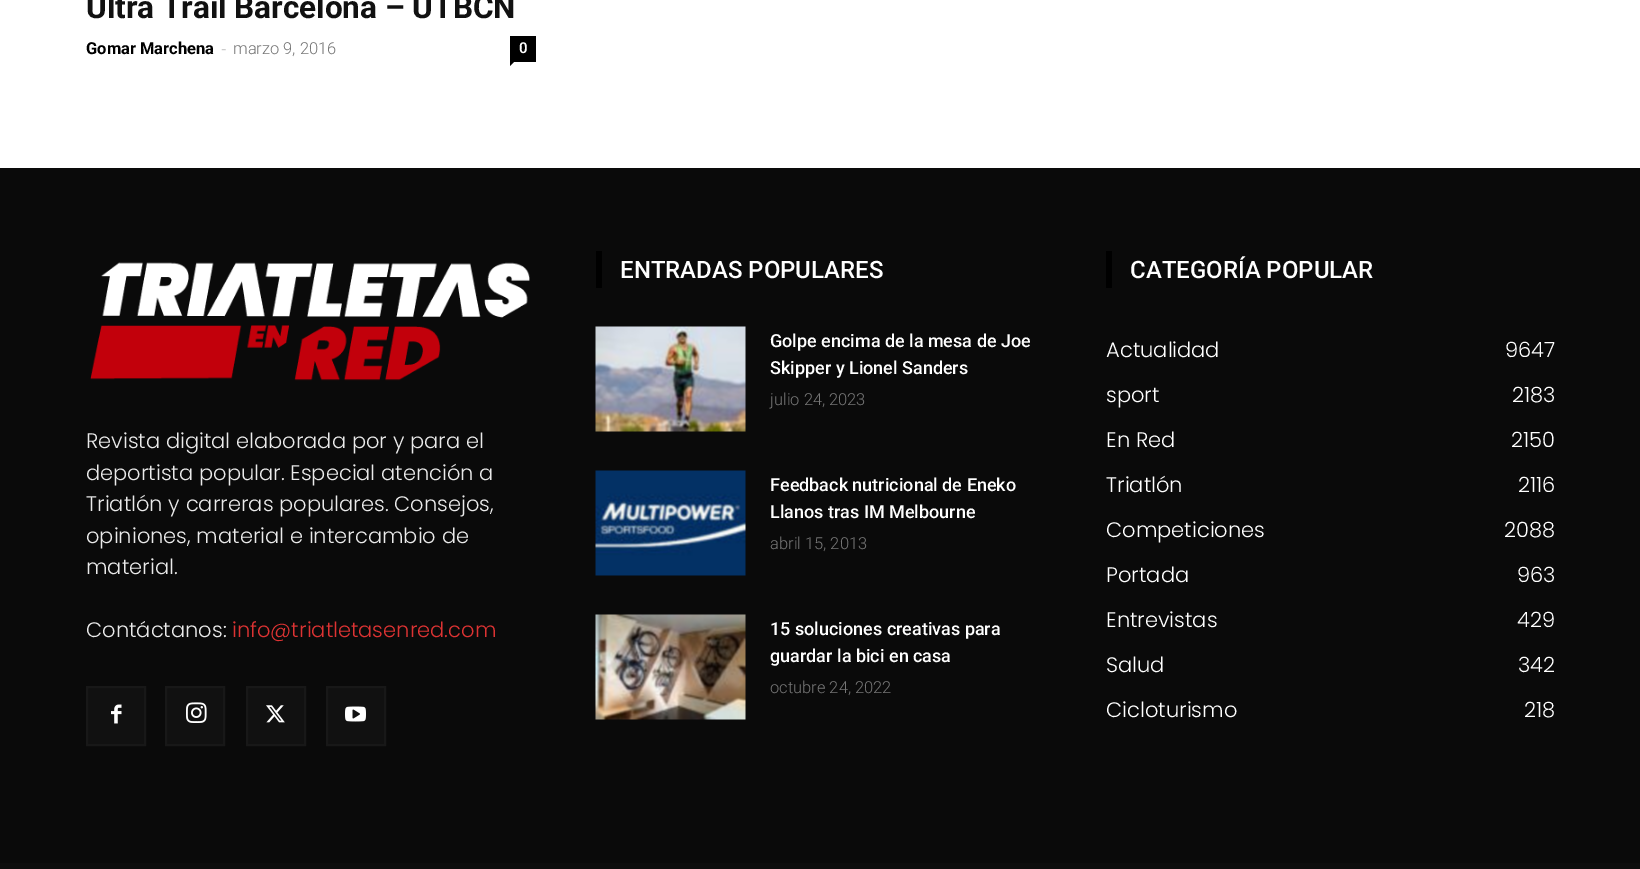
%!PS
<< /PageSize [1640 869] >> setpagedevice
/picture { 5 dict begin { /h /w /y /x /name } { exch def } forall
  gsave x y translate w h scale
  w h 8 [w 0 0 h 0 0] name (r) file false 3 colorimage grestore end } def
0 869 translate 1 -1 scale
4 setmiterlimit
1 setgray
0 0 1640 869 rectfill
/Roboto-Bold [31.5 0 0 -31.5 0 0] selectfont
0.067 setgray
86 18 moveto (Ultra Trail Barcelona – UTBCN) show
/Roboto-Bold [16.5 0 0 -16.5 0 0] selectfont
0 setgray
86 54 moveto (Gomar Marchena) show
/OpenSans-Regular [16.5 0 0 -16.5 0 0] selectfont
0.8 setgray
221 54 moveto (-) show
/Roboto-Light [16.5 0 0 -16.5 0 0] selectfont
0.463 setgray
233 54 moveto (marzo 9, 2016) show
0 setgray
510 36 26 26 rectfill
/Roboto-SemiBold [15 0 0 -15 0 0] selectfont
1 setgray
519 53 moveto (0) show
0 setgray
newpath 510 61.5 moveto 514.5 61.5 lineto 510 66 lineto closepath fill
0.039 setgray
0 168 1640 695 rectfill
(img1.rgb) 90 262 440 119 picture
/Poppins-Light [21 0 0 -21 0 0] selectfont
0.918 setgray
86 448 moveto (Revista digital elaborada por y para el) show
86 480 moveto (deportista popular. Especial atención a) show
86 511 moveto (Triatlón y carreras populares. Consejos,) show
86 543 moveto (opiniones, material e intercambio de) show
86 574 moveto (material.) show
86 637 moveto (Contáctanos:) show
0.867 0.2 0.2 setrgbcolor
232 637 moveto (info@triatletasenred.com) show
0.067 setgray
88 688 56 56 rectfill
(img2.rgb) 111 704 11 20 picture
0.094 setgray
2 setlinewidth
87 687 58 58 rectstroke
0.067 setgray
167 688 56 56 rectfill
(img3.rgb) 186 702 21 21 picture
0.094 setgray
166 687 58 58 rectstroke
0.067 setgray
248 688 56 56 rectfill
(img4.rgb) 266 705 19 18 picture
0.094 setgray
247 687 58 58 rectstroke
0.067 setgray
328 688 56 56 rectfill
(img5.rgb) 345 706 21 16 picture
0.094 setgray
327 687 58 58 rectstroke
0 setgray
596 251 6 37 rectfill
/Roboto-Medium [24 0 0 -24 0 0] selectfont
1 setgray
620 278 moveto (ENTRADAS POPULARES) show
(img6.rgb) 595 326 151 106 picture
/Roboto-Medium [18 0 0 -18 0 0] selectfont
770 347 moveto (Golpe encima de la mesa de Joe) show
770 374 moveto (Skipper y Lionel Sanders) show
/Roboto-Light [16.5 0 0 -16.5 0 0] selectfont
0.463 setgray
770 405 moveto (julio 24, 2023) show
(img7.rgb) 595 470 151 106 picture
/Roboto-Medium [18 0 0 -18 0 0] selectfont
1 setgray
770 491 moveto (Feedback nutricional de Eneko) show
770 518 moveto (Llanos tras IM Melbourne) show
/Roboto-Light [16.5 0 0 -16.5 0 0] selectfont
0.463 setgray
770 549 moveto (abril 15, 2013) show
(img8.rgb) 595 614 151 106 picture
/Roboto-Medium [18 0 0 -18 0 0] selectfont
1 setgray
770 635 moveto (15 soluciones creativas para) show
770 662 moveto (guardar la bici en casa) show
/Roboto-Light [16.5 0 0 -16.5 0 0] selectfont
0.463 setgray
770 693 moveto (octubre 24, 2022) show
0 setgray
1106 251 6 37 rectfill
/Roboto-Medium [24 0 0 -24 0 0] selectfont
1 setgray
1130 278 moveto (CATEGORÍA POPULAR) show
/Poppins-Light [21 0 0 -21 0 0] selectfont
1106 357 moveto (Actualidad) show
1505 357 moveto (9647) show
1106 402 moveto (sport) show
1512 402 moveto (2183) show
1106 447 moveto (En Red) show
1511 447 moveto (2150) show
1106 492 moveto (Triatlón) show
1518 492 moveto (2116) show
1106 537 moveto (Competiciones) show
1504 537 moveto (2088) show
1106 582 moveto (Portada) show
1517 582 moveto (963) show
1106 627 moveto (Entrevistas) show
1517 627 moveto (429) show
1106 672 moveto (Salud) show
1518 672 moveto (342) show
1106 717 moveto (Cicloturismo) show
1524 717 moveto (218) show
0.051 setgray
0 863 1640 6 rectfill
showpage
